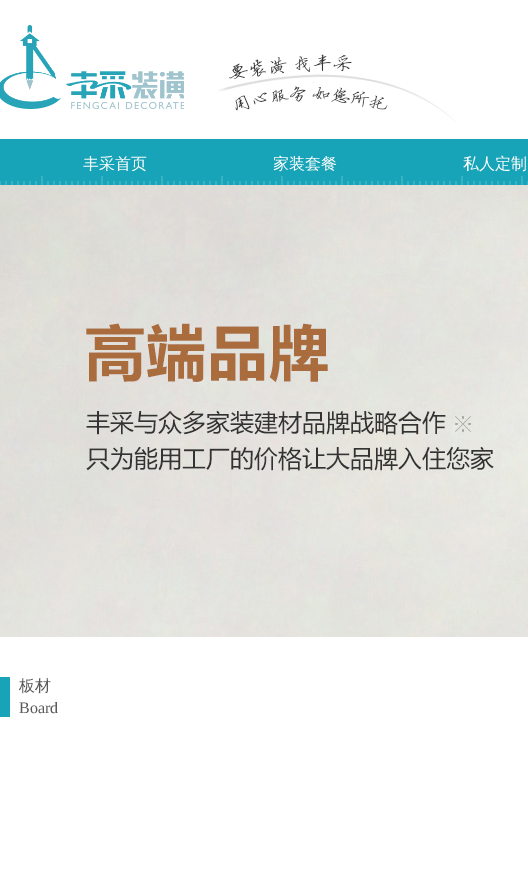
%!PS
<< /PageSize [528 890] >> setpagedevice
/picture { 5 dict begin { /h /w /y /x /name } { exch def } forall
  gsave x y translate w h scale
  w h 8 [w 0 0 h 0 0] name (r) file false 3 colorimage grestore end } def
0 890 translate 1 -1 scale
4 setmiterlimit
1 setgray
0 0 528 890 rectfill
(img1.rgb) 0 25 184 84 picture
(img2.rgb) 218 54 239 69 picture
0.094 0.643 0.722 setrgbcolor
0 139 528 46 rectfill
(img3.rgb) 0 176 528 9 picture
/WenQuanYiZenHei-Medium [16 0 0 -16 0 0] selectfont
1 setgray
83 169 moveto (丰采首页) show
273 169 moveto (家装套餐) show
463 169 moveto (私人定制) show
(img4.rgb) 0 185 528 452 picture
0.094 0.643 0.722 setrgbcolor
0 677 10 40 rectfill
0.353 setgray
19 691 moveto (板材) show
/LiberationSerif-Regular [16 0 0 -16 0 0] selectfont
19 713 moveto (Board) show
showpage
